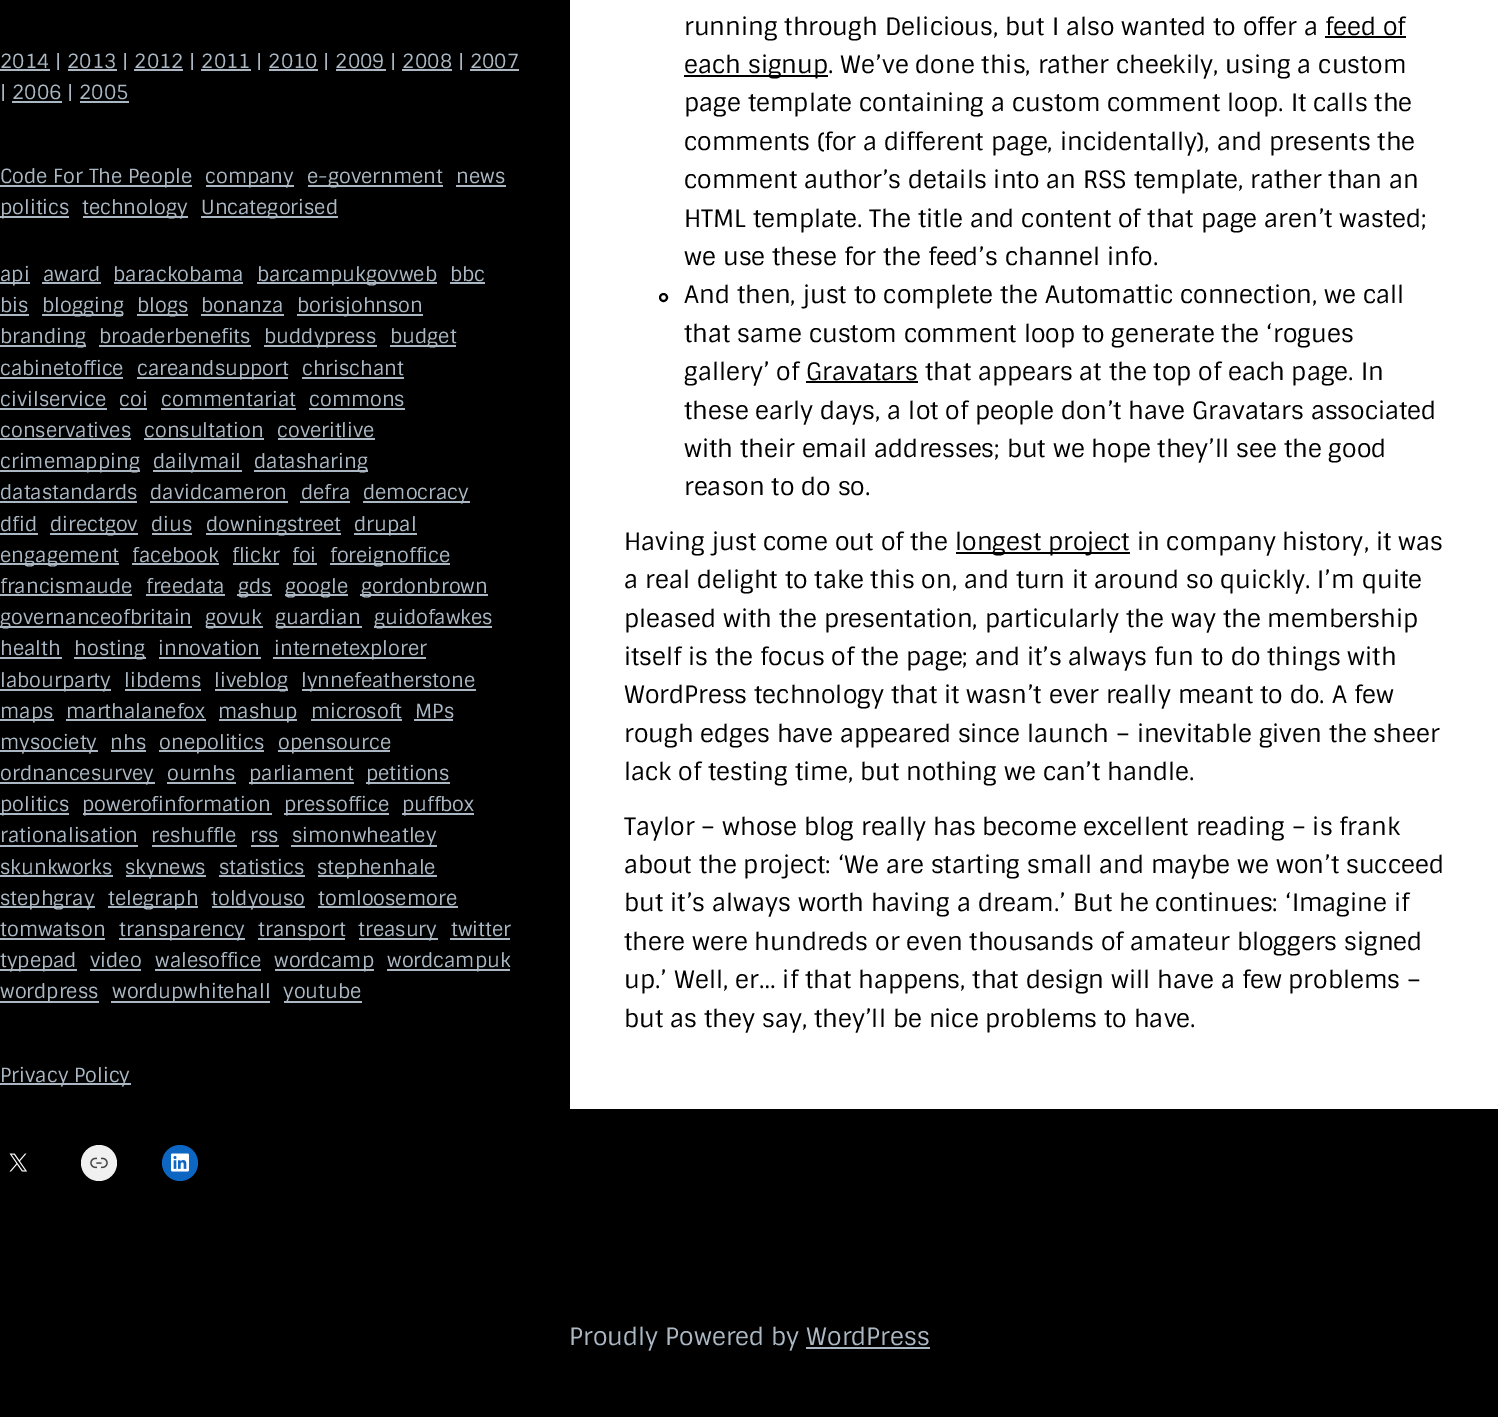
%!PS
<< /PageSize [1498 1417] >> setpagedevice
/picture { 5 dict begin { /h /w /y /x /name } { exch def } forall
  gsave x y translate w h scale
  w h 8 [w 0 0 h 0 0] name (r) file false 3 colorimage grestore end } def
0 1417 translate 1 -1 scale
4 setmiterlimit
0 setgray
0 0 1498 1417 rectfill
0.671 0.722 0.765 setrgbcolor
0 69 50 2 rectfill
/Sintony-Regular [19.5 0 0 -19.5 0 0] selectfont
0 68 moveto (2014 | 2013 | 2012 | 2011 | 2010 | 2009 | 2008 | 2007) show
68 69 49 2 rectfill
134 69 49 2 rectfill
201 69 50 2 rectfill
269 69 49 2 rectfill
336 69 50 2 rectfill
402 69 50 2 rectfill
470 69 49 2 rectfill
0 99 moveto (| 2006 | 2005) show
12 101 50 2 rectfill
80 101 49 2 rectfill
0 185 192 2 rectfill
0 183 moveto (Code For The People) show
206 185 88 2 rectfill
205 183 moveto (company) show
308 185 135 2 rectfill
307 183 moveto (e-government) show
456 183 moveto (news) show
456 185 50 2 rectfill
0 216 69 2 rectfill
0 214 moveto (politics) show
83 216 105 2 rectfill
82 214 moveto (technology) show
201 216 137 2 rectfill
201 214 moveto (Uncategorised) show
0 282 30 2 rectfill
0 281 moveto (api) show
43 281 moveto (award) show
42 282 59 2 rectfill
113 281 moveto (barackobama) show
114 282 129 2 rectfill
257 282 180 2 rectfill
257 281 moveto (barcampukgovweb) show
450 281 moveto (bbc) show
450 282 35 2 rectfill
0 312 moveto (bis) show
0 314 29 2 rectfill
42 314 81 2 rectfill
42 312 moveto (blogging) show
137 314 51 2 rectfill
137 312 moveto (blogs) show
201 312 moveto (bonanza) show
201 314 83 2 rectfill
297 314 126 2 rectfill
297 312 moveto (borisjohnson) show
0 345 86 2 rectfill
0 343 moveto (branding) show
99 343 moveto (broaderbenefits) show
99 345 152 2 rectfill
264 345 113 2 rectfill
264 343 moveto (buddypress) show
390 345 66 2 rectfill
390 343 moveto (budget) show
0 375 moveto (cabinetoffice) show
0 377 123 2 rectfill
137 377 151 2 rectfill
137 375 moveto (careandsupport) show
302 375 moveto (chrischant) show
302 377 102 2 rectfill
0 406 moveto (civilservice) show
0 408 107 2 rectfill
119 406 moveto (coi) show
120 408 27 2 rectfill
161 406 moveto (commentariat) show
161 408 135 2 rectfill
309 406 moveto (commons) show
309 408 96 2 rectfill
0 437 moveto (conservatives) show
0 438 131 2 rectfill
144 437 moveto (consultation) show
144 438 120 2 rectfill
277 437 moveto (coveritlive) show
278 438 97 2 rectfill
0 470 140 2 rectfill
0 468 moveto (crimemapping) show
153 470 89 2 rectfill
153 468 moveto (dailymail) show
254 470 114 2 rectfill
254 468 moveto (datasharing) show
0 499 moveto (datastandards) show
0 501 137 2 rectfill
150 499 moveto (davidcameron) show
150 501 138 2 rectfill
301 499 moveto (defra) show
300 501 50 2 rectfill
363 501 107 2 rectfill
363 499 moveto (democracy) show
0 531 moveto (dfid) show
0 533 38 2 rectfill
50 533 88 2 rectfill
50 531 moveto (directgov) show
151 531 moveto (dius) show
152 533 40 2 rectfill
206 533 135 2 rectfill
206 531 moveto (downingstreet) show
354 533 63 2 rectfill
354 531 moveto (drupal) show
0 563 119 2 rectfill
0 562 moveto (engagement) show
132 562 moveto (facebook) show
132 563 87 2 rectfill
232 562 moveto (flickr) show
233 563 46 2 rectfill
292 562 moveto (foi) show
293 563 24 2 rectfill
330 563 120 2 rectfill
330 562 moveto (foreignoffice) show
0 593 moveto (francismaude) show
0 594 132 2 rectfill
146 593 moveto (freedata) show
146 594 79 2 rectfill
237 594 35 2 rectfill
238 593 moveto (gds) show
285 594 63 2 rectfill
285 593 moveto (google) show
360 594 128 2 rectfill
361 593 moveto (gordonbrown) show
0 626 192 2 rectfill
0 624 moveto (governanceofbritain) show
206 626 57 2 rectfill
205 624 moveto (govuk) show
276 626 86 2 rectfill
275 624 moveto (guardian) show
374 626 118 2 rectfill
374 624 moveto (guidofawkes) show
0 655 moveto (health) show
0 657 62 2 rectfill
74 657 72 2 rectfill
74 655 moveto (hosting) show
158 655 moveto (innovation) show
159 657 102 2 rectfill
273 657 153 2 rectfill
274 655 moveto (internetexplorer) show
0 689 111 2 rectfill
0 687 moveto (labourparty) show
124 687 moveto (libdems) show
125 689 76 2 rectfill
215 689 73 2 rectfill
214 687 moveto (liveblog) show
302 689 174 2 rectfill
301 687 moveto (lynnefeatherstone) show
0 719 54 2 rectfill
0 718 moveto (maps) show
66 718 moveto (marthalanefox) show
66 719 140 2 rectfill
219 719 78 2 rectfill
218 718 moveto (mashup) show
311 718 moveto (microsoft) show
311 719 91 2 rectfill
415 718 moveto (MPs) show
414 719 39 2 rectfill
0 750 98 2 rectfill
0 749 moveto (mysociety) show
110 749 moveto (nhs) show
111 750 35 2 rectfill
159 750 105 2 rectfill
159 749 moveto (onepolitics) show
278 750 112 2 rectfill
278 749 moveto (opensource) show
0 782 155 2 rectfill
0 780 moveto (ordnancesurvey) show
167 780 moveto (ournhs) show
167 782 69 2 rectfill
249 782 105 2 rectfill
249 780 moveto (parliament) show
366 782 84 2 rectfill
366 780 moveto (petitions) show
0 813 69 2 rectfill
0 811 moveto (politics) show
83 813 189 2 rectfill
82 811 moveto (powerofinformation) show
284 813 105 2 rectfill
284 811 moveto (pressoffice) show
402 813 72 2 rectfill
402 811 moveto (puffbox) show
0 842 moveto (rationalisation) show
0 845 138 2 rectfill
151 842 moveto (reshuffle) show
152 845 85 2 rectfill
250 842 moveto (rss) show
251 845 28 2 rectfill
291 845 146 2 rectfill
292 842 moveto (simonwheatley) show
0 874 moveto (skunkworks) show
0 875 113 2 rectfill
126 875 80 2 rectfill
125 874 moveto (skynews) show
219 874 moveto (statistics) show
219 875 86 2 rectfill
318 875 119 2 rectfill
317 874 moveto (stephenhale) show
0 906 95 2 rectfill
0 905 moveto (stephgray) show
108 906 90 2 rectfill
108 905 moveto (telegraph) show
212 906 93 2 rectfill
211 905 moveto (toldyouso) show
318 905 moveto (tomloosemore) show
318 906 140 2 rectfill
0 936 moveto (tomwatson) show
0 938 105 2 rectfill
119 938 126 2 rectfill
119 936 moveto (transparency) show
258 938 87 2 rectfill
258 936 moveto (transport) show
359 938 79 2 rectfill
358 936 moveto (treasury) show
451 936 moveto (twitter) show
450 938 60 2 rectfill
0 969 77 2 rectfill
0 967 moveto (typepad) show
90 967 moveto (video) show
90 969 51 2 rectfill
155 967 moveto (walesoffice) show
155 969 106 2 rectfill
275 969 99 2 rectfill
274 967 moveto (wordcamp) show
387 969 123 2 rectfill
387 967 moveto (wordcampuk) show
0 1001 99 2 rectfill
0 998 moveto (wordpress) show
111 1001 159 2 rectfill
112 998 moveto (wordupwhitehall) show
284 1001 78 2 rectfill
283 998 moveto (youtube) show
0 1083 131 2 rectfill
0 1082 moveto (Privacy Policy) show
(img1.rgb) 9 1153 18 19 picture
0.941 setgray
newpath 99 1163 18 0 360 arc closepath fill
(img2.rgb) 90 1157 18 12 picture
0.051 0.4 0.761 setrgbcolor
newpath 180 1163 18 0 360 arc closepath fill
(img3.rgb) 171 1153 18 19 picture
1 setgray
570 0 928 1109 rectfill
/Sintony-Regular [24 0 0 -24 0 0] selectfont
0 setgray
684 35 moveto (running through Delicious, but I also wanted to offer a feed of) show
684 75 144 2 rectfill
684 73 moveto (each signup. We’ve done this, rather cheekily, using a custom) show
1325 36 81 2 rectfill
684 111 moveto (page template containing a custom comment loop. It calls the) show
684 150 moveto (comments \(for a different page, incidentally\), and presents the) show
684 188 moveto (comment author’s details into an RSS template, rather than an) show
684 227 moveto (HTML template. The title and content of that page aren’t wasted;) show
684 265 moveto (we use these for the feed’s channel info.) show
2 setlinewidth
newpath 663.5 297.5 3.5 0 360 arc closepath stroke
684 303 moveto (And then, just to complete the Automattic connection, we call) show
684 342 moveto (that same custom comment loop to generate the ‘rogues) show
684 380 moveto (gallery’ of Gravatars that appears at the top of each page. In) show
806 381 112 2 rectfill
684 419 moveto (these early days, a lot of people don’t have Gravatars associated) show
684 457 moveto (with their email addresses; but we hope they’ll see the good) show
684 495 moveto (reason to do so.) show
624 550 moveto (Having just come out of the) show
956 552 174 2 rectfill
955 550 moveto (longest project in company history, it was) show
624 588 moveto (a real delight to take this on, and turn it around so quickly. I’m quite) show
624 627 moveto (pleased with the presentation, particularly the way the membership) show
624 665 moveto (itself is the focus of the page; and it’s always fun to do things with) show
624 703 moveto (WordPress technology that it wasn’t ever really meant to do. A few) show
624 742 moveto (rough edges have appeared since launch – inevitable given the sheer) show
624 780 moveto (lack of testing time, but nothing we can’t handle.) show
624 835 moveto (Taylor – whose blog really has become excellent reading – is frank) show
624 873 moveto (about the project: ‘We are starting small and maybe we won’t succeed) show
624 911 moveto (but it’s always worth having a dream.’ But he continues: ‘Imagine if) show
624 950 moveto (there were hundreds or even thousands of amateur bloggers signed) show
624 988 moveto (up.’ Well, er… if that happens, that design will have a few problems –) show
624 1027 moveto (but as they say, they’ll be nice problems to have.) show
0.671 0.722 0.765 setrgbcolor
569 1345 moveto (Proudly Powered by WordPress) show
806 1347 124 2 rectfill
showpage
